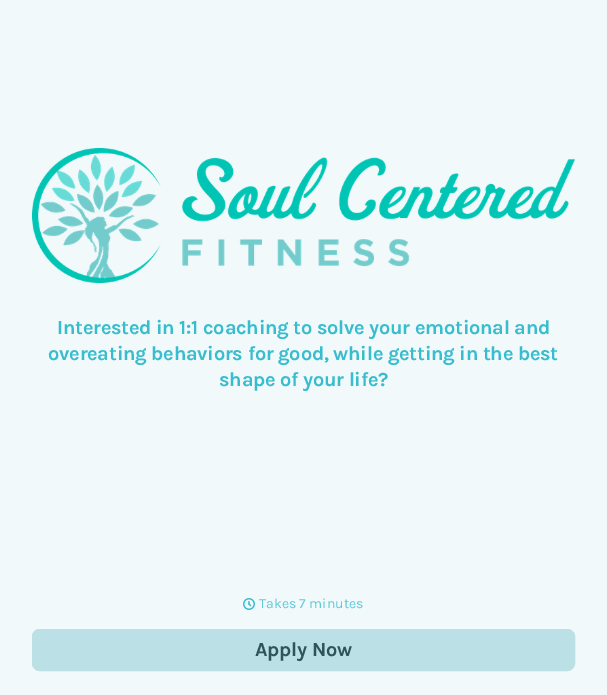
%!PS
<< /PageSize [607 695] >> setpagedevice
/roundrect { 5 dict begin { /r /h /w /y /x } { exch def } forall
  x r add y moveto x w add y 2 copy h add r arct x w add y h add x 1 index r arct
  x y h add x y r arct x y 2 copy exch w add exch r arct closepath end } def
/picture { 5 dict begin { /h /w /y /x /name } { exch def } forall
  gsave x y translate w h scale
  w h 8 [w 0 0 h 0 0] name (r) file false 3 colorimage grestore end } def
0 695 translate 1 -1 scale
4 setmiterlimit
0.945 0.976 0.98 setrgbcolor
0 0 607 695 rectfill
(img1.rgb) 32 148 543 135 picture
/Karla-Bold [20 0 0 -20 0 0] selectfont
0.22 0.741 0.812 setrgbcolor
57 334 moveto -0.25 0 (Interested in 1:1 coaching to solve your emotional and) ashow
48 360 moveto -0.25 0 (overeating behaviors for good, while getting in the best) ashow
219 386 moveto -0.25 0 (shape of your life?) ashow
(img2.rgb) 243 598 12 12 picture
/Karla-Regular [14 0 0 -14 0 0] selectfont
0.365 0.788 0.847 setrgbcolor
259 608 moveto (Takes 7 minutes) show
0.733 0.878 0.898 setrgbcolor
32.5 629.5 542 41 7.5 roundrect stroke
32 629 543 42 8 roundrect fill
/Karla-Bold [20 0 0 -20 0 0] selectfont
0.176 0.333 0.353 setrgbcolor
255 656 moveto -0.25 0 (Apply Now) ashow
showpage
